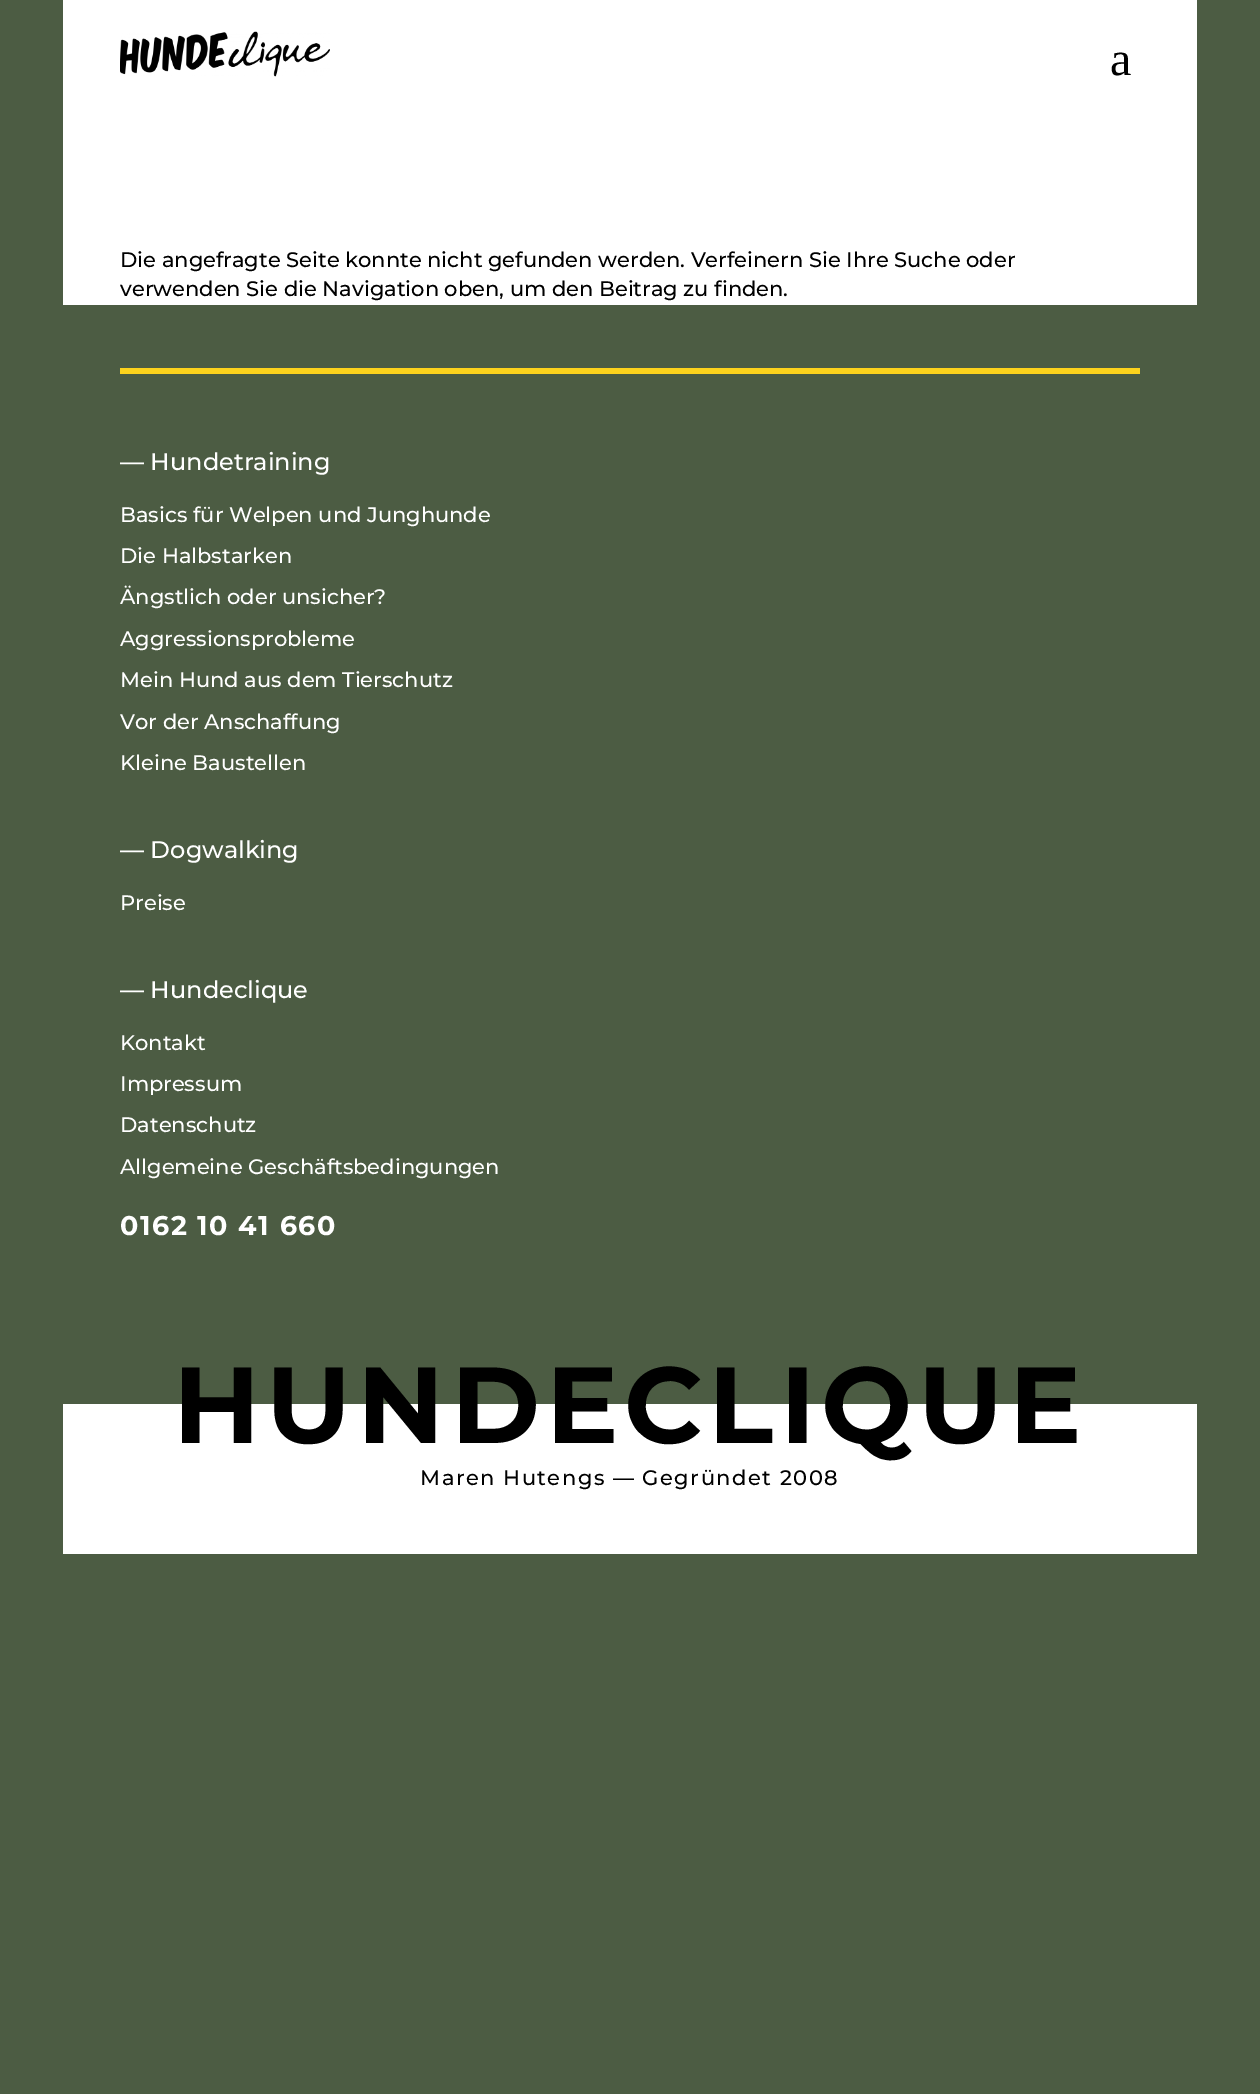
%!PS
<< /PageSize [1260 2094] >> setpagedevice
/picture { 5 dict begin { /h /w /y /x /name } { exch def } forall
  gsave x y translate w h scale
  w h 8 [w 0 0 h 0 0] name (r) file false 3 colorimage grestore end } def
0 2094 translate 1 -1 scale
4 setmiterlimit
0.298 0.361 0.263 setrgbcolor
0 0 1260 2094 rectfill
1 setgray
63 0 1134 305 rectfill
(img1.rgb) 120 31 210 46 picture
/LiberationSerif-Regular [48 0 0 -48 0 0] selectfont
0 setgray
1110 75 moveto (a) show
/Montserrat-Medium [21 0 0 -21 0 0] selectfont
120 267 moveto (Die angefragte Seite konnte nicht gefunden werden. Verfeinern Sie Ihre Suche oder) show
120 296 moveto (verwenden Sie die Navigation oben, um den Beitrag zu finden.) show
0.988 0.824 0.114 setrgbcolor
120 368 1020 6 rectfill
/Montserrat-Medium [24 0 0 -24 0 0] selectfont
1 setgray
120 470 moveto (— Hundetraining) show
/Montserrat-Medium [21 0 0 -21 0 0] selectfont
120 522 moveto (Basics für Welpen und Junghunde) show
120 563 moveto (Die Halbstarken) show
120 604 moveto (Ängstlich oder unsicher?) show
120 646 moveto (Aggressionsprobleme) show
120 687 moveto (Mein Hund aus dem Tierschutz) show
120 729 moveto (Vor der Anschaffung) show
120 770 moveto (Kleine Baustellen) show
/Montserrat-Medium [24 0 0 -24 0 0] selectfont
120 858 moveto (— Dogwalking) show
/Montserrat-Medium [21 0 0 -21 0 0] selectfont
120 910 moveto (Preise) show
/Montserrat-Medium [24 0 0 -24 0 0] selectfont
120 998 moveto (— Hundeclique) show
/Montserrat-Medium [21 0 0 -21 0 0] selectfont
120 1050 moveto (Kontakt) show
120 1091 moveto (Impressum) show
120 1132 moveto (Datenschutz) show
120 1174 moveto (Allgemeine Geschäftsbedingungen) show
/Montserrat-Bold [27 0 0 -27 0 0] selectfont
120 1235 moveto 1.5 0 (0162 10 41 660) ashow
63 1404 1134 150 rectfill
/Montserrat-Bold [108 0 0 -108 0 0] selectfont
0 setgray
173 1443 moveto 6 0 (HUNDECLIQUE) ashow
/Montserrat-Medium [21 0 0 -21 0 0] selectfont
420 1485 moveto 1.5 0 (Maren Hutengs — Gegründet 2008) ashow
showpage
